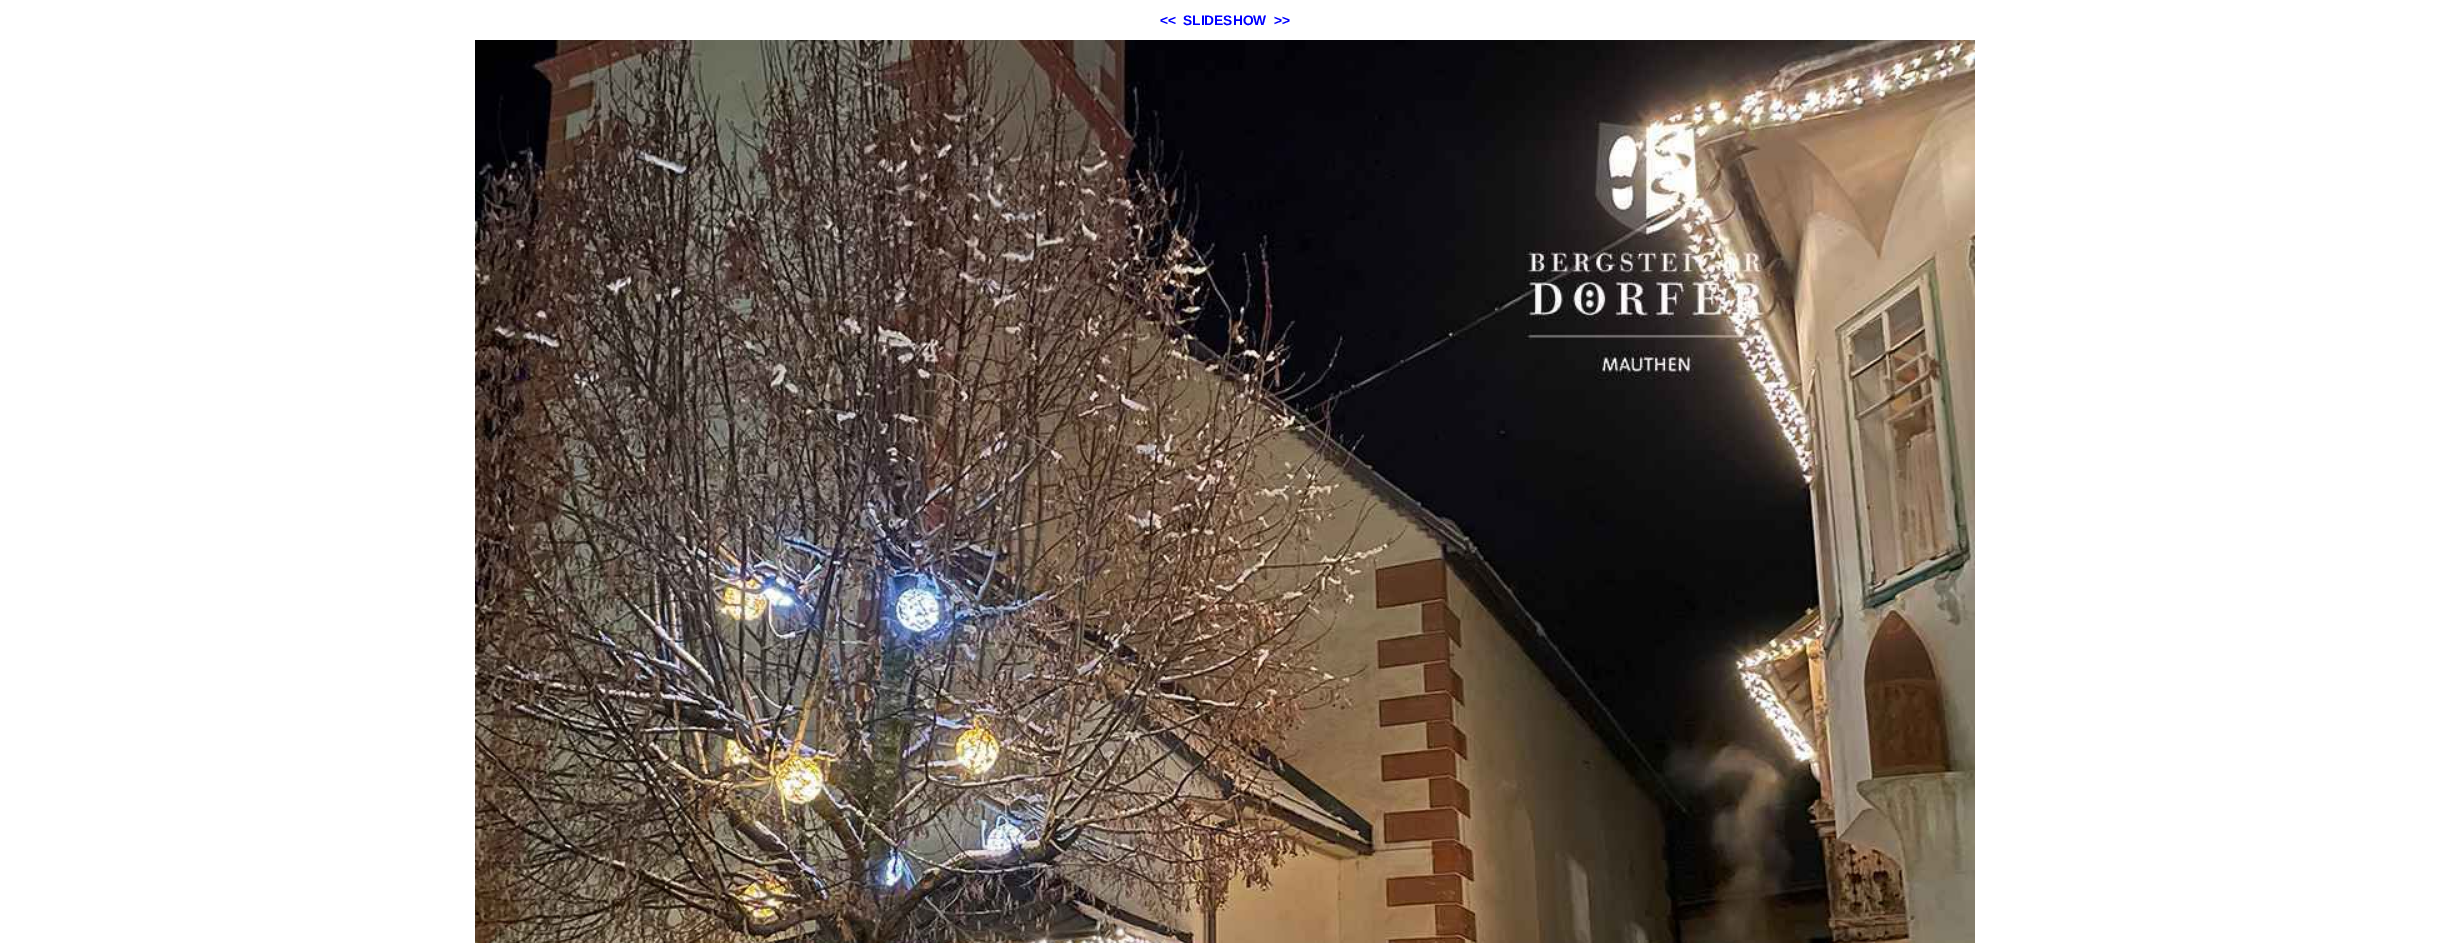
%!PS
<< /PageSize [2450 943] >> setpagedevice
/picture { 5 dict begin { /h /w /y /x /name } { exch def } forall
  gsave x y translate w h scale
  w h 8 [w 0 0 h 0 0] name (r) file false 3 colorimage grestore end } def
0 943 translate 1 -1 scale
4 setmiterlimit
1 setgray
0 0 2450 943 rectfill
/LiberationSans-Bold [13.75 0 0 -13.75 0 0] selectfont
0 0 1 setrgbcolor
1160 25 moveto (<<) show
1183 25 moveto (SLIDESHOW) show
1274 25 moveto (>>) show
(img1.rgb) 475 40 1500 903 picture
showpage
